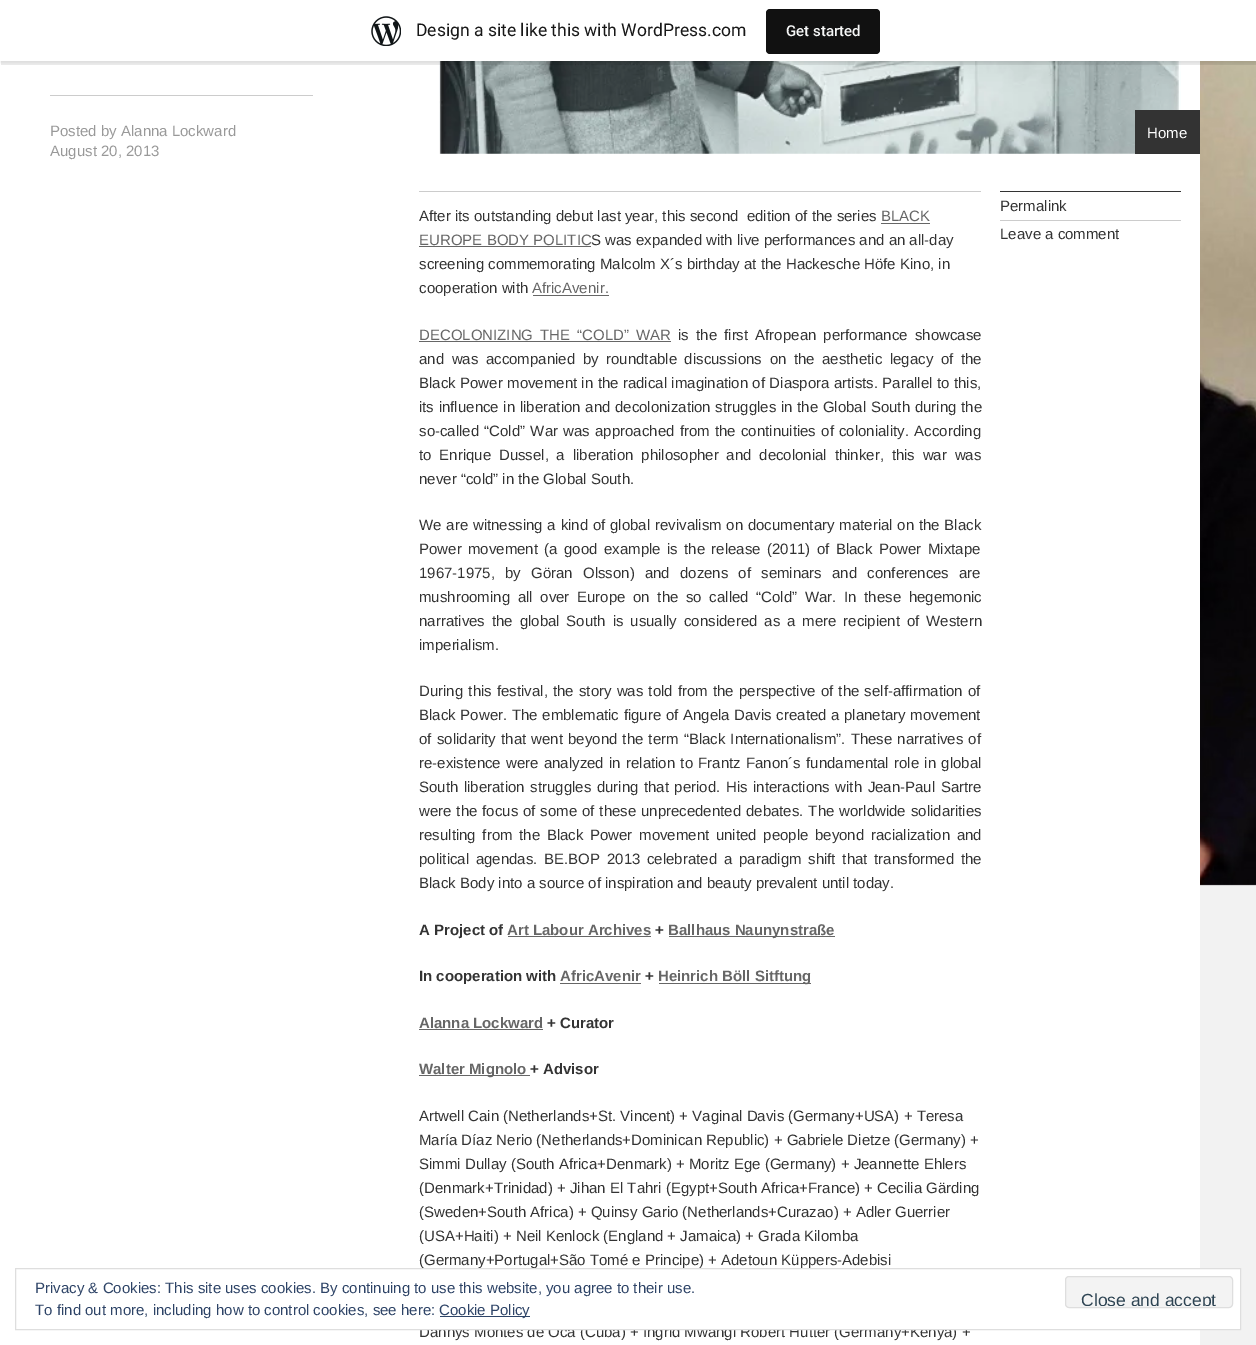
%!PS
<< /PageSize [1256 1345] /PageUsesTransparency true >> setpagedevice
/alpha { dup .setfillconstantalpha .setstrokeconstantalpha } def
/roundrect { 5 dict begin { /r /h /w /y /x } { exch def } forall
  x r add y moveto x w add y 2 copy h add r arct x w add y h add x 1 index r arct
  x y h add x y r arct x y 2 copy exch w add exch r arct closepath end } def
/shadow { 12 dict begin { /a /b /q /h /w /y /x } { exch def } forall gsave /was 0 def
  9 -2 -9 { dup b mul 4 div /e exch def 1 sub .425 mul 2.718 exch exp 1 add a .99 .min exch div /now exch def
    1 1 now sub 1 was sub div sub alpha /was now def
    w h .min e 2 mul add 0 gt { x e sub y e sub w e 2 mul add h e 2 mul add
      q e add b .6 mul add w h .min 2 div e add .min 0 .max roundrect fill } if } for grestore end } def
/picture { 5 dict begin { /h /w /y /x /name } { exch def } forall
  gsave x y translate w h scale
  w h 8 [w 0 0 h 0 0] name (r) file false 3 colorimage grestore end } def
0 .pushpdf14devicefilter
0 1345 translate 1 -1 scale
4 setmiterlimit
0.949 setgray
0 0 1256 1345 rectfill
(img1.rgb) 1200 61 56 825 picture
1 setgray
0 61 1200 1284 rectfill
(img3.rgb) 439 61 742 93 picture
0 setgray
0 1 1256 62 0 1 0.05 shadow
0.08 alpha
newpath 1 61 moveto 1 65 lineto 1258 65 lineto 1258 4 lineto 1256 4 lineto 1256 61 lineto closepath fill
1 alpha
1 setgray
0 0 1256 61 rectfill
(img2.rgb) 371 16 30 30 picture
/Roboto-Regular [17.5 0 0 -17.5 0 0] selectfont
0.09 setgray
416 36 moveto (Design a site like this with WordPress.com) show
0.067 setgray
766 9 114 45 4 roundrect fill
/Roboto-Medium [15 0 0 -15 0 0] selectfont
0.965 0.969 0.969 setrgbcolor
786 36 moveto (Get started) show
0.8 setgray
50 95 263 1 rectfill
/LiberationSans-Regular [15 0 0 -15 0 0] selectfont
0.6 setgray
50 136 moveto (Posted by Alanna Lockward) show
50 156 moveto (August 20, 2013) show
0.2 setgray
1135 110 65 44 rectfill
1 setgray
1147 138 moveto (Home) show
0.8 setgray
419 191 562 1 rectfill
0.2 setgray
419 221 moveto (After its outstanding debut last year, this second  edition of the series) show
0.4 setgray
881 221 moveto (BLACK) show
881 223 49 1 rectfill
419 245 moveto (EUROPE BODY POLITIC) show
419 246 172 1 rectfill
0.2 setgray
591 245 moveto (S was expanded with live performances and an all-day) show
419 269 moveto (screening commemorating Malcolm X´s birthday at the Hackesche Höfe Kino, in) show
419 293 moveto (cooperation with) show
0.4 setgray
532 293 moveto (AfricAvenir.) show
533 295 76 1 rectfill
419 340 moveto 3 0 32 (DECOLONIZING THE “COLD” WAR) widthshow
419 341 252 1 rectfill
0.2 setgray
678 340 moveto 3 0 32 (is the first Afropean performance showcase) widthshow
419 364 moveto 3.4 0 32 (and was accompanied by roundtable discussions on the aesthetic legacy of the) widthshow
419 388 moveto 0.25 0 32 (Black Power movement in the radical imagination of Diaspora artists. Parallel to this,) widthshow
419 412 moveto 0.5 0 32 (its influence in liberation and decolonization struggles in the Global South during the) widthshow
419 436 moveto 1.1 0 32 (so-called “Cold” War was approached from the continuities of coloniality. According) widthshow
419 460 moveto 3.6 0 32 (to Enrique Dussel, a liberation philosopher and decolonial thinker, this war was) widthshow
419 484 moveto (never “cold” in the Global South.) show
419 530 moveto 0.6 0 32 (We are witnessing a kind of global revivalism on documentary material on the Black) widthshow
419 554 moveto 2.25 0 32 (Power movement \(a good example is the release \(2011\) of Black Power Mixtape) widthshow
419 578 moveto 6 0 32 (1967-1975, by Göran Olsson\) and dozens of seminars and conferences are) widthshow
419 602 moveto 3.5 0 32 (mushrooming all over Europe on the so called “Cold” War. In these hegemonic) widthshow
419 626 moveto 2.75 0 32 (narratives the global South is usually considered as a mere recipient of Western) widthshow
419 650 moveto (imperialism.) show
419 696 moveto 1 0 32 (During this festival, the story was told from the perspective of the self-affirmation of) widthshow
419 720 moveto 0.5 0 32 (Black Power. The emblematic figure of Angela Davis created a planetary movement) widthshow
419 744 moveto 1 0 32 (of solidarity that went beyond the term “Black Internationalism”. These narratives of) widthshow
419 768 moveto 1.1 0 32 (re-existence were analyzed in relation to Frantz Fanon´s fundamental role in global) widthshow
419 792 moveto 1.4 0 32 (South liberation struggles during that period. His interactions with Jean-Paul Sartre) widthshow
419 816 moveto 0.75 0 32 (were the focus of some of these unprecedented debates. The worldwide solidarities) widthshow
419 840 moveto 2.5 0 32 (resulting from the Black Power movement united people beyond racialization and) widthshow
419 864 moveto 2.6 0 32 (political agendas. BE.BOP 2013 celebrated a paradigm shift that transformed the) widthshow
419 888 moveto (Black Body into a source of inspiration and beauty prevalent until today.) show
/LiberationSans-Bold [15 0 0 -15 0 0] selectfont
419 935 moveto (A Project of) show
0.4 setgray
507 935 moveto (Art Labour Archives) show
508 936 143 1 rectfill
0.2 setgray
655 935 moveto (+) show
0.4 setgray
669 936 166 1 rectfill
668 935 moveto (Ballhaus Naunynstraße) show
0.2 setgray
419 981 moveto (In cooperation with) show
0.4 setgray
560 981 moveto (AfricAvenir) show
560 983 81 1 rectfill
0.2 setgray
645 981 moveto (+) show
0.4 setgray
659 983 152 1 rectfill
658 981 moveto (Heinrich Böll Sitftung) show
419 1028 moveto (Alanna Lockward) show
419 1029 124 1 rectfill
0.2 setgray
547 1028 moveto (+ Curator) show
0.4 setgray
419 1075 111 1 rectfill
419 1074 moveto (Walter Mignolo) show
0.2 setgray
530 1074 moveto (+ Advisor) show
/LiberationSans-Regular [15 0 0 -15 0 0] selectfont
419 1121 moveto (Artwell Cain \(Netherlands+St. Vincent\) + Vaginal Davis \(Germany+USA\) + Teresa) show
419 1145 moveto (María Díaz Nerio \(Netherlands+Dominican Republic\) + Gabriele Dietze \(Germany\) +) show
419 1169 moveto (Simmi Dullay \(South Africa+Denmark\) + Moritz Ege \(Germany\) + Jeannette Ehlers) show
419 1193 moveto (\(Denmark+Trinidad\) + Jihan El Tahri \(Egypt+South Africa+France\) + Cecilia Gärding) show
419 1217 moveto (\(Sweden+South Africa\) + Quinsy Gario \(Netherlands+Curazao\) + Adler Guerrier) show
419 1241 moveto (\(USA+Haiti\) + Neil Kenlock \(England + Jamaica\) + Grada Kilomba) show
419 1265 moveto (\(Germany+Portugal+São Tomé e Principe\) + Adetoun Küppers-Adebisi) show
419 1337 moveto (Dannys Montes de Oca \(Cuba\) + Ingrid Mwangi Robert Hutter \(Germany+Kenya\) +) show
1000 191 181 1 rectfill
0.8 setgray
1000 220 181 1 rectfill
0.2 setgray
1000 211 moveto (Permalink) show
1000 239 moveto (Leave a comment) show
1 setgray
419 1269 821 60 rectfill
0.871 setgray
15.5 1268.5 1225 61 rectstroke
0.18 0.267 0.404 setrgbcolor
35 1293 moveto (Privacy & Cookies: This site uses cookies. By continuing to use this website, you agree to their use.) show
0.953 setgray
1065.5 1276.5 167 31 3.5 roundrect gsave fill grestore
0.871 setgray
stroke
gsave
1066 1278 165 28 2.5 roundrect clip newpath
/LiberationSans-Regular [17.5 0 0 -17.5 0 0] selectfont
0.18 0.267 0.325 setrgbcolor
1081 1306 moveto (Close and accept) show
grestore
0.18 0.267 0.404 setrgbcolor
35 1315 moveto (To find out more, including how to control cookies, see here:) show
440 1316 90 1 rectfill
439 1315 moveto (Cookie Policy) show
.poppdf14devicefilter showpage
